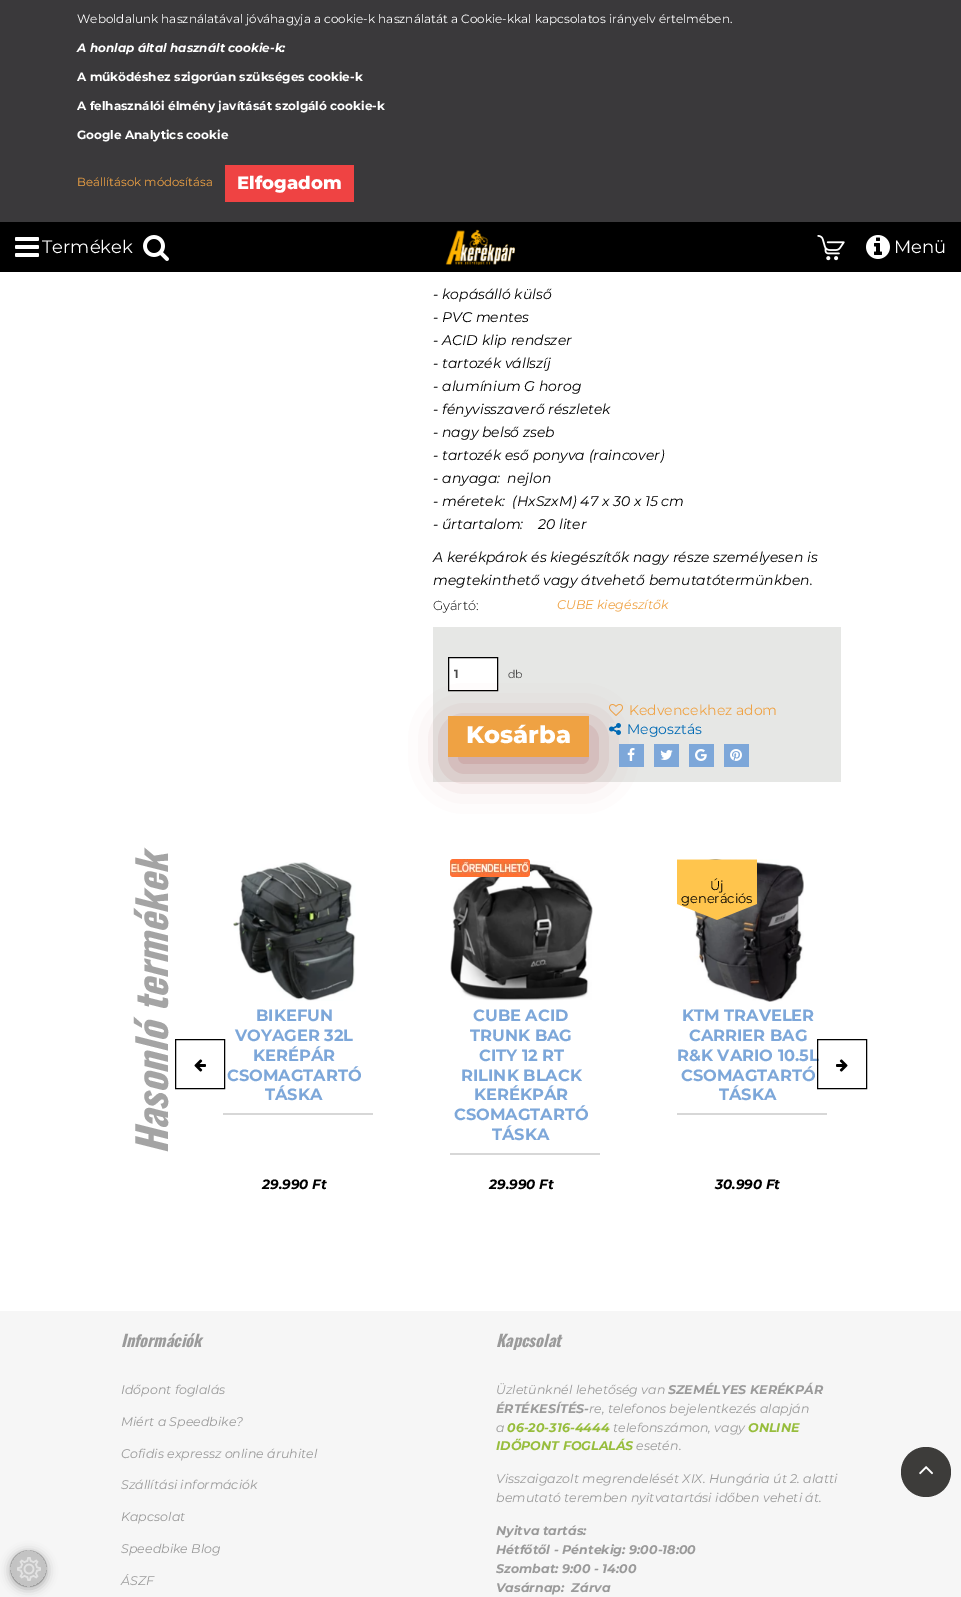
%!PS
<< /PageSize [961 1597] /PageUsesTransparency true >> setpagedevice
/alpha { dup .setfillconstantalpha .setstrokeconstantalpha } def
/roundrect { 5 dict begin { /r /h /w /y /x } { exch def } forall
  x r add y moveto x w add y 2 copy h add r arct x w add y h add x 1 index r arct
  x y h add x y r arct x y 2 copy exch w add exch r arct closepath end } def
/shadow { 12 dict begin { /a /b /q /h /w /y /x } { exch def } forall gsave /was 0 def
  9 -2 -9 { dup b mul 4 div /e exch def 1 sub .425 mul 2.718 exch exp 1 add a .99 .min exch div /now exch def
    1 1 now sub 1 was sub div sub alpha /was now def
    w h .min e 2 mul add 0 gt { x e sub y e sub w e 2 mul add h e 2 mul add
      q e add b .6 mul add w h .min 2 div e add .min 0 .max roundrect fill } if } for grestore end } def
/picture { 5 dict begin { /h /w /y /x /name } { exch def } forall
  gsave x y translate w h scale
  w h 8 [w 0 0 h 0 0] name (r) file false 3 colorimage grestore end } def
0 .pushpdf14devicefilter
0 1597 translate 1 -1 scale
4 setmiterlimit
1 setgray
0 0 961 1597 rectfill
0.227 0.224 0.231 setrgbcolor
0 0 961 222 rectfill
/Montserrat-Regular [12 0 0 -12 0 0] selectfont
1 setgray
77 23 moveto (Weboldalunk használatával jóváhagyja a cookie-k használatát a Cookie-kkal kapcsolatos irányelv értelmében.) show
/Montserrat-BoldItalic [12 0 0 -12 0 0] selectfont
77 52 moveto (A honlap által használt cookie-k:) show
/Montserrat-Bold [12 0 0 -12 0 0] selectfont
77 81 moveto (A működéshez szigorúan szükséges cookie-k) show
77 110 moveto (A felhasználói élmény javítását szolgáló cookie-k) show
77 139 moveto (Google Analytics cookie) show
/Montserrat-Regular [11.75 0 0 -11.75 0 0] selectfont
0.937 0.635 0.263 setrgbcolor
77 186 moveto (Beállítások módosítása) show
0.937 0.263 0.263 setrgbcolor
225 165 129 37 rectfill
/Montserrat-ExtraBold [18 0 0 -18 0 0] selectfont
1 setgray
237 189 moveto (Elfogadom) show
0 setgray
0 222 961 50 rectfill
(img1.rgb) 15 237 24 20 picture
/Montserrat-Regular [18 0 0 -18 0 0] selectfont
1 setgray
42 253 moveto (Termékek) show
(img2.rgb) 143 235 26 26 picture
(img3.rgb) 445 229 70 36 picture
(img4.rgb) 817 235 28 26 picture
(img5.rgb) 866 235 24 24 picture
894 253 moveto (Menü) show
0.965 setgray
0 1311 961 286 rectfill
gsave
newpath 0 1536 moveto 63 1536 lineto 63 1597 lineto 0 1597 lineto closepath 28.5 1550 moveto 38.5 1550 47 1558.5 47 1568.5 curveto 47 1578.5 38.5 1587 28.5 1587 curveto 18.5 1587 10 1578.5 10 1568.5 curveto 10 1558.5 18.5 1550 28.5 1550 curveto closepath eoclip newpath
0 setgray
10 1552 37 37 18.5 5 0.3 shadow
grestore
0.3 alpha
0.306 setgray
newpath 28.5 1568.5 18.5 0 360 arc closepath fill
1 alpha
(img6.rgb) 17 1557 24 24 picture
/Montserrat-Italic [14 0 0 -14 0 0] selectfont
0 setgray
433 299 moveto (- kopásálló külső) show
433 322 moveto (- PVC mentes) show
433 345 moveto (- ACID klip rendszer) show
433 368 moveto (- tartozék vállszíj) show
433 391 moveto (- alumínium G horog) show
433 414 moveto (- fényvisszaverő részletek) show
433 437 moveto (- nagy belső zseb) show
433 460 moveto (- tartozék eső ponyva \(raincover\)) show
433 483 moveto (- anyaga:  nejlon) show
433 506 moveto (- méretek:  \(HxSzxM\) 47 x 30 x 15 cm) show
433 529 moveto (- űrtartalom:    20 liter) show
433 562 moveto (A kerékpárok és kiegészítők nagy része személyesen is) show
433 585 moveto (megtekinthető vagy átvehető bemutatótermünkben.) show
/Montserrat-Light [13 0 0 -13 0 0] selectfont
433 610 moveto (Gyártó:) show
/Montserrat-Italic [12.6 0 0 -12.6 0 0] selectfont
0.937 0.635 0.263 setrgbcolor
557 609 moveto (CUBE kiegészítők) show
0.902 0.906 0.898 setrgbcolor
433 627 408 155 rectfill
1 setgray
newpath 448.5 657.5 moveto 497.5 657.5 lineto 497.5 690.5 lineto 448.5 690.5 lineto closepath gsave fill grestore
0 setgray
stroke
/Montserrat-Bold [11.75 0 0 -11.75 0 0] selectfont
0.29 setgray
454 678 moveto (1) show
/Montserrat-Regular [11 0 0 -11 0 0] selectfont
508 678 moveto (db) show
(img7.rgb) 609 704 14 12 picture
0.549 0.094 0.094 setrgbcolor
453 728 141 41 0 20 0.4 shadow
0.937 0.635 0.263 setrgbcolor
448 716 141 41 rectfill
/Montserrat-ExtraBold [24 0 0 -24 0 0] selectfont
1 setgray
466 743 moveto (Kosárba) show
/Montserrat-Regular [14 0 0 -14 0 0] selectfont
0.937 0.635 0.263 setrgbcolor
629 715 moveto (Kedvencekhez adom) show
(img8.rgb) 609 723 12 12 picture
0 0.412 0.706 setrgbcolor
627 734 moveto (Megosztás) show
0.49 0.655 0.851 setrgbcolor
619 744 25 23 rectfill
(img9.rgb) 627 748 8 13 picture
654 744 25 23 rectfill
(img10.rgb) 660 750 13 10 picture
689 744 25 23 rectfill
(img11.rgb) 695 749 12 12 picture
724 744 25 23 rectfill
(img12.rgb) 730 749 12 12 picture
/Oswald-BoldItalic [40.5 0 0 -40.5 0 0] selectfont
0.643 setgray
gsave 168 1154 translate -90 rotate 0 0 moveto (Hasonló termékek) show grestore
0 setgray
175.5 1039.5 49 49 rectstroke
(img13.rgb) 194 1059 12 13 picture
(img14.rgb) 233 862 123 139 picture
/Montserrat-Bold [16.25 0 0 -16.25 0 0] selectfont
0.49 0.655 0.851 setrgbcolor
256 1021 moveto (BIKEFUN) show
235 1041 moveto (VOYAGER 32L) show
253 1061 moveto (KERÉPÁR) show
227 1081 moveto (CSOMAGTARTÓ) show
265 1100 moveto (TÁSKA) show
0.843 setgray
223 1113 150 2 rectfill
/Montserrat-BoldItalic [13.5 0 0 -13.5 0 0] selectfont
0 setgray
262 1189 moveto (29.990 Ft) show
(img16.rgb) 450 861 143 140 picture
(img15.rgb) 450 859 80 18 picture
/Montserrat-Bold [16.25 0 0 -16.25 0 0] selectfont
0.49 0.655 0.851 setrgbcolor
473 1021 moveto (CUBE ACID) show
470 1041 moveto (TRUNK BAG) show
479 1061 moveto (CITY 12 RT) show
461 1081 moveto (RILINK BLACK) show
474 1100 moveto (KERÉKPÁR) show
454 1120 moveto (CSOMAGTARTÓ) show
492 1140 moveto (TÁSKA) show
0.843 setgray
450 1153 150 2 rectfill
/Montserrat-BoldItalic [13.5 0 0 -13.5 0 0] selectfont
0 setgray
489 1189 moveto (29.990 Ft) show
(img17.rgb) 692 859 112 143 picture
(img18.rgb) 677 859 80 61 picture
/Montserrat-Regular [13 0 0 -13 0 0] selectfont
710 890 moveto (Új) show
681 903 moveto (generációs) show
/Montserrat-Bold [16.25 0 0 -16.25 0 0] selectfont
0.49 0.655 0.851 setrgbcolor
682 1021 moveto (KTM TRAVELER) show
689 1041 moveto (CARRIER BAG) show
677 1061 moveto (R&K VARIO 10.5L) show
681 1081 moveto (CSOMAGTARTÓ) show
719 1100 moveto (TÁSKA) show
0.843 setgray
677 1113 150 2 rectfill
/Montserrat-BoldItalic [13.5 0 0 -13.5 0 0] selectfont
0 setgray
715 1189 moveto (30.990 Ft) show
817.5 1039.5 49 49 rectstroke
(img19.rgb) 836 1059 12 13 picture
/Oswald-BoldItalic [16.25 0 0 -16.25 0 0] selectfont
0.604 setgray
121 1347 moveto (Információk) show
/Montserrat-Italic [12.6 0 0 -12.6 0 0] selectfont
121 1394 moveto (Időpont foglalás) show
121 1426 moveto (Miért a Speedbike?) show
121 1458 moveto (Cofidis expressz online áruhitel) show
121 1489 moveto (Szállítási információk) show
121 1521 moveto (Kapcsolat) show
121 1553 moveto (Speedbike Blog) show
121 1585 moveto (ÁSZF) show
/Oswald-BoldItalic [16.25 0 0 -16.25 0 0] selectfont
496 1347 moveto (Kapcsolat) show
/Montserrat-Italic [12.6 0 0 -12.6 0 0] selectfont
496 1394 moveto (Üzletünknél lehetőség van) show
/Montserrat-BoldItalic [12.6 0 0 -12.6 0 0] selectfont
668 1394 moveto (SZEMÉLYES KERÉKPÁR) show
496 1413 moveto (ÉRTÉKESÍTÉS-) show
/Montserrat-Italic [12.6 0 0 -12.6 0 0] selectfont
589 1413 moveto (re, telefonos bejelentkezés alapján) show
496 1432 moveto (a) show
/Montserrat-BoldItalic [12.6 0 0 -12.6 0 0] selectfont
0.592 0.741 0.235 setrgbcolor
507 1432 moveto (06-20-316-4444) show
/Montserrat-Italic [12.6 0 0 -12.6 0 0] selectfont
0.604 setgray
613 1432 moveto (telefonszámon, vagy) show
/Montserrat-BoldItalic [12.6 0 0 -12.6 0 0] selectfont
0.592 0.741 0.235 setrgbcolor
748 1432 moveto (ONLINE) show
496 1450 moveto (IDŐPONT FOGLALÁS) show
/Montserrat-Italic [12.6 0 0 -12.6 0 0] selectfont
0.604 setgray
636 1450 moveto (esetén.) show
496 1483 moveto (Visszaigazolt megrendelését XIX. Hungária út 2. alatti) show
496 1502 moveto (bemutató teremben nyitvatartási időben veheti át.) show
/Montserrat-BoldItalic [12.6 0 0 -12.6 0 0] selectfont
496 1535 moveto (Nyitva tartás:) show
496 1554 moveto (Hétfőtől - Péntekig: 9:00-18:00) show
496 1573 moveto (Szombat: 9:00 - 14:00) show
496 1592 moveto (Vasárnap:  Zárva) show
0.239 0.235 0.227 setrgbcolor
newpath 926 1472 25 0 360 arc closepath fill
(img20.rgb) 919 1466 14 9 picture
.poppdf14devicefilter showpage
